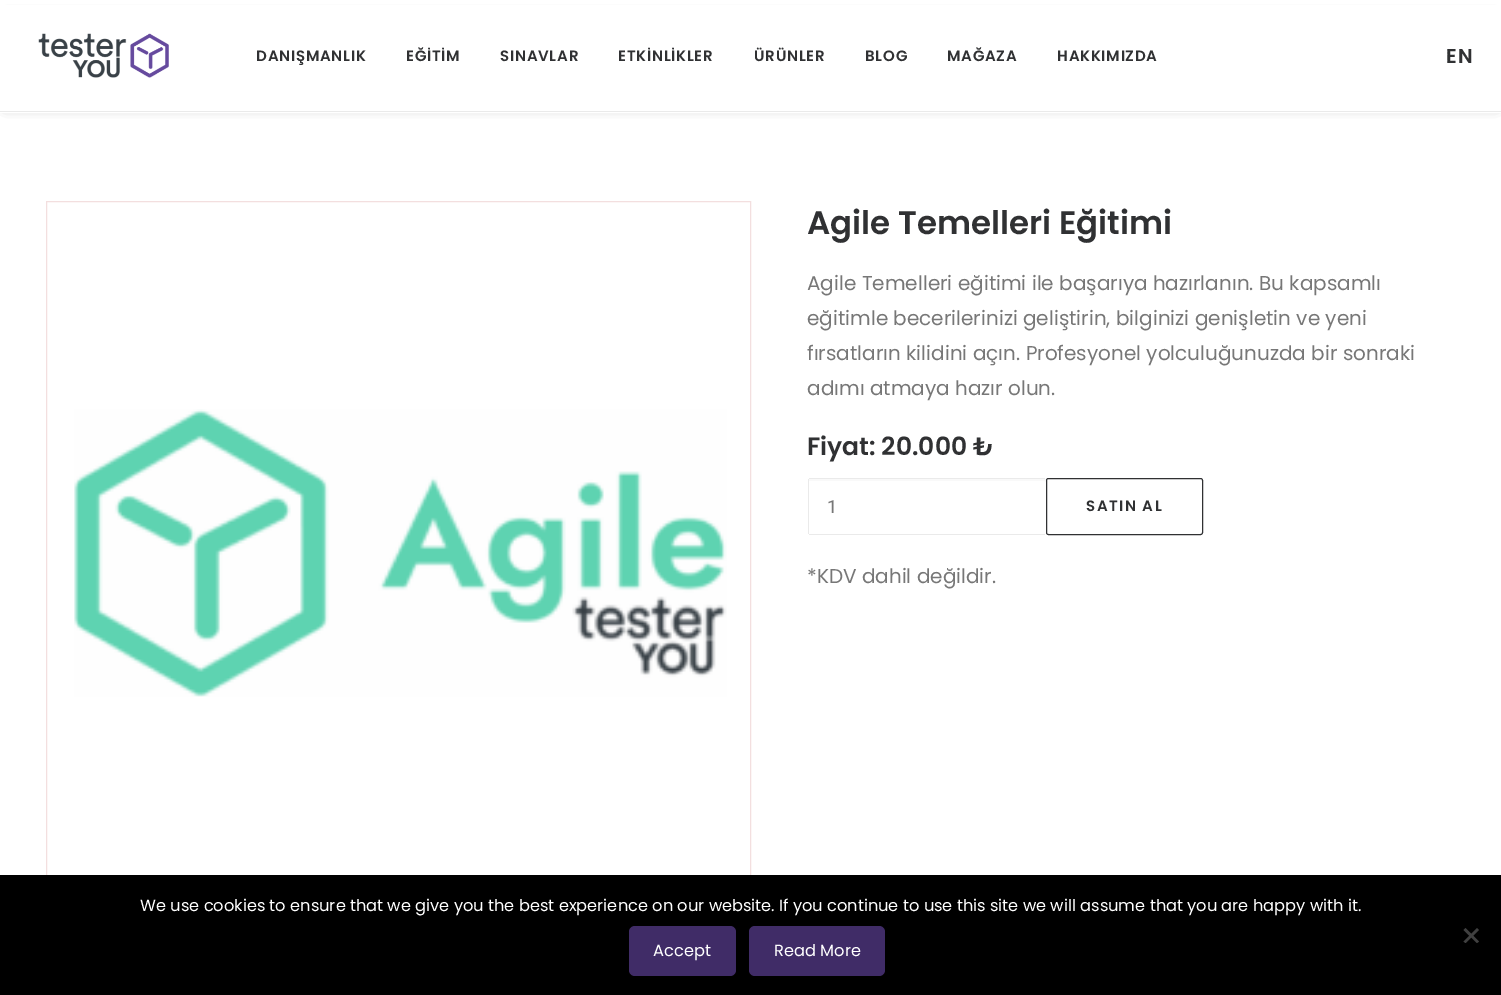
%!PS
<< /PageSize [1501 995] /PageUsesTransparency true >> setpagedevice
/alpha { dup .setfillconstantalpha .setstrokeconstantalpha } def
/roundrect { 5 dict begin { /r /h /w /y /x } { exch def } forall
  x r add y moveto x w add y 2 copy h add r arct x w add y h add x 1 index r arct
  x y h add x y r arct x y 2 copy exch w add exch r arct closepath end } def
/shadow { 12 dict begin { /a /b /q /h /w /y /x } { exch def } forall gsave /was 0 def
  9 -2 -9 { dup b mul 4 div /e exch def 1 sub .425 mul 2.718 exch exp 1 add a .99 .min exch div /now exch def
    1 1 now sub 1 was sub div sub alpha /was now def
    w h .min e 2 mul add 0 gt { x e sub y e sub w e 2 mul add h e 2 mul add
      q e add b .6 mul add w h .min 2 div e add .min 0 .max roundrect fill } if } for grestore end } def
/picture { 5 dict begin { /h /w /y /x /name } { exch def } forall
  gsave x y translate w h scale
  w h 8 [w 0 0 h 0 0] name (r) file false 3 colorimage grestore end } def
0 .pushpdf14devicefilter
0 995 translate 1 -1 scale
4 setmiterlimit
1 setgray
0 0 1501 995 rectfill
0 setgray
6 18 1490 87 0 6 0.6 shadow
1 setgray
0 5 1501 108 rectfill
0.918 setgray
0 111 1501 1 rectfill
(img1.rgb) 38 33 131 45 picture
/Poppins-SemiBold [15 0 0 -15 0 0] selectfont
0.188 0.192 0.2 setrgbcolor
256 61 moveto 0.75 0 (DANIŞMANLIK) ashow
406 61 moveto 0.75 0 (EĞİTİM) ashow
500 61 moveto 0.75 0 (SINAVLAR) ashow
618 61 moveto 0.75 0 (ETKİNLİKLER) ashow
754 61 moveto 0.75 0 (ÜRÜNLER) ashow
865 61 moveto 0.75 0 (BLOG) ashow
947 61 moveto 0.75 0 (MAĞAZA) ashow
1057 61 moveto 0.75 0 (HAKKIMIZDA) ashow
/Poppins-SemiBold [20 0 0 -20 0 0] selectfont
1446 63 moveto 1 0 (EN) ashow
0.953 0.875 0.875 setrgbcolor
46.5 201.5 704 703 rectstroke
(img2.rgb) 74 409 653 288 picture
/Poppins-SemiBold [32.5 0 0 -32.5 0 0] selectfont
0.188 0.192 0.2 setrgbcolor
807 234 moveto (Agile Temelleri Eğitimi) show
/Poppins-Regular [20 0 0 -20 0 0] selectfont
0.467 setgray
807 290 moveto (Agile Temelleri eğitimi ile başarıya hazırlanın. Bu kapsamlı) show
807 325 moveto (eğitimle becerilerinizi geliştirin, bilginizi genişletin ve yeni) show
807 360 moveto (fırsatların kilidini açın. Profesyonel yolculuğunuzda bir sonraki) show
807 395 moveto (adımı atmaya hazır olun.) show
/Poppins-SemiBold [25 0 0 -25 0 0] selectfont
0.188 0.192 0.2 setrgbcolor
807 455 moveto (Fiyat: 20.000 ₺) show
0.976 setgray
newpath 810 481 moveto 1044 481 lineto 1046 482 lineto 1046 533 lineto 1046 480 lineto 1046 479 1045 479 1044 479 curveto 810 479 lineto 809 479 809 479 809 480 curveto 809 533 lineto 809 481 lineto closepath fill
0.918 setgray
809 478 236 1 rectfill
809 534 236 1 rectfill
808 479 1 55 rectfill
/Roboto-Regular [18 0 0 -18 0 0] selectfont
0.467 setgray
827 513 moveto (1) show
0.188 0.192 0.2 setrgbcolor
1046.5 478.5 156 56 2 roundrect stroke
/Poppins-SemiBold [15 0 0 -15 0 0] selectfont
1086 511 moveto 1.5 0 (SATIN AL) ashow
/Poppins-Regular [20 0 0 -20 0 0] selectfont
0.467 setgray
807 583 moveto (*KDV dahil değildir.) show
0 setgray
0 875 1501 120 rectfill
/Poppins-Regular [16.25 0 0 -16.25 0 0] selectfont
1 setgray
140 911 moveto (We use cookies to ensure that we give you the best experience on our website. If you continue to use this site we will assume that you are happy with it.) show
0.251 setgray
newpath 1477 928 moveto 1479 930 lineto 1465.5 943 lineto 1463.5 941.5 lineto closepath fill
newpath 1463.5 930 moveto 1465.5 928 lineto 1479 941.5 lineto 1477 943 lineto closepath fill
0.251 0.173 0.404 setrgbcolor
629 926 107 50 6 roundrect fill
1 setgray
653 956 moveto (Accept) show
0.251 0.173 0.404 setrgbcolor
749 926 136 50 6 roundrect fill
1 setgray
774 956 moveto (Read More) show
.poppdf14devicefilter showpage
